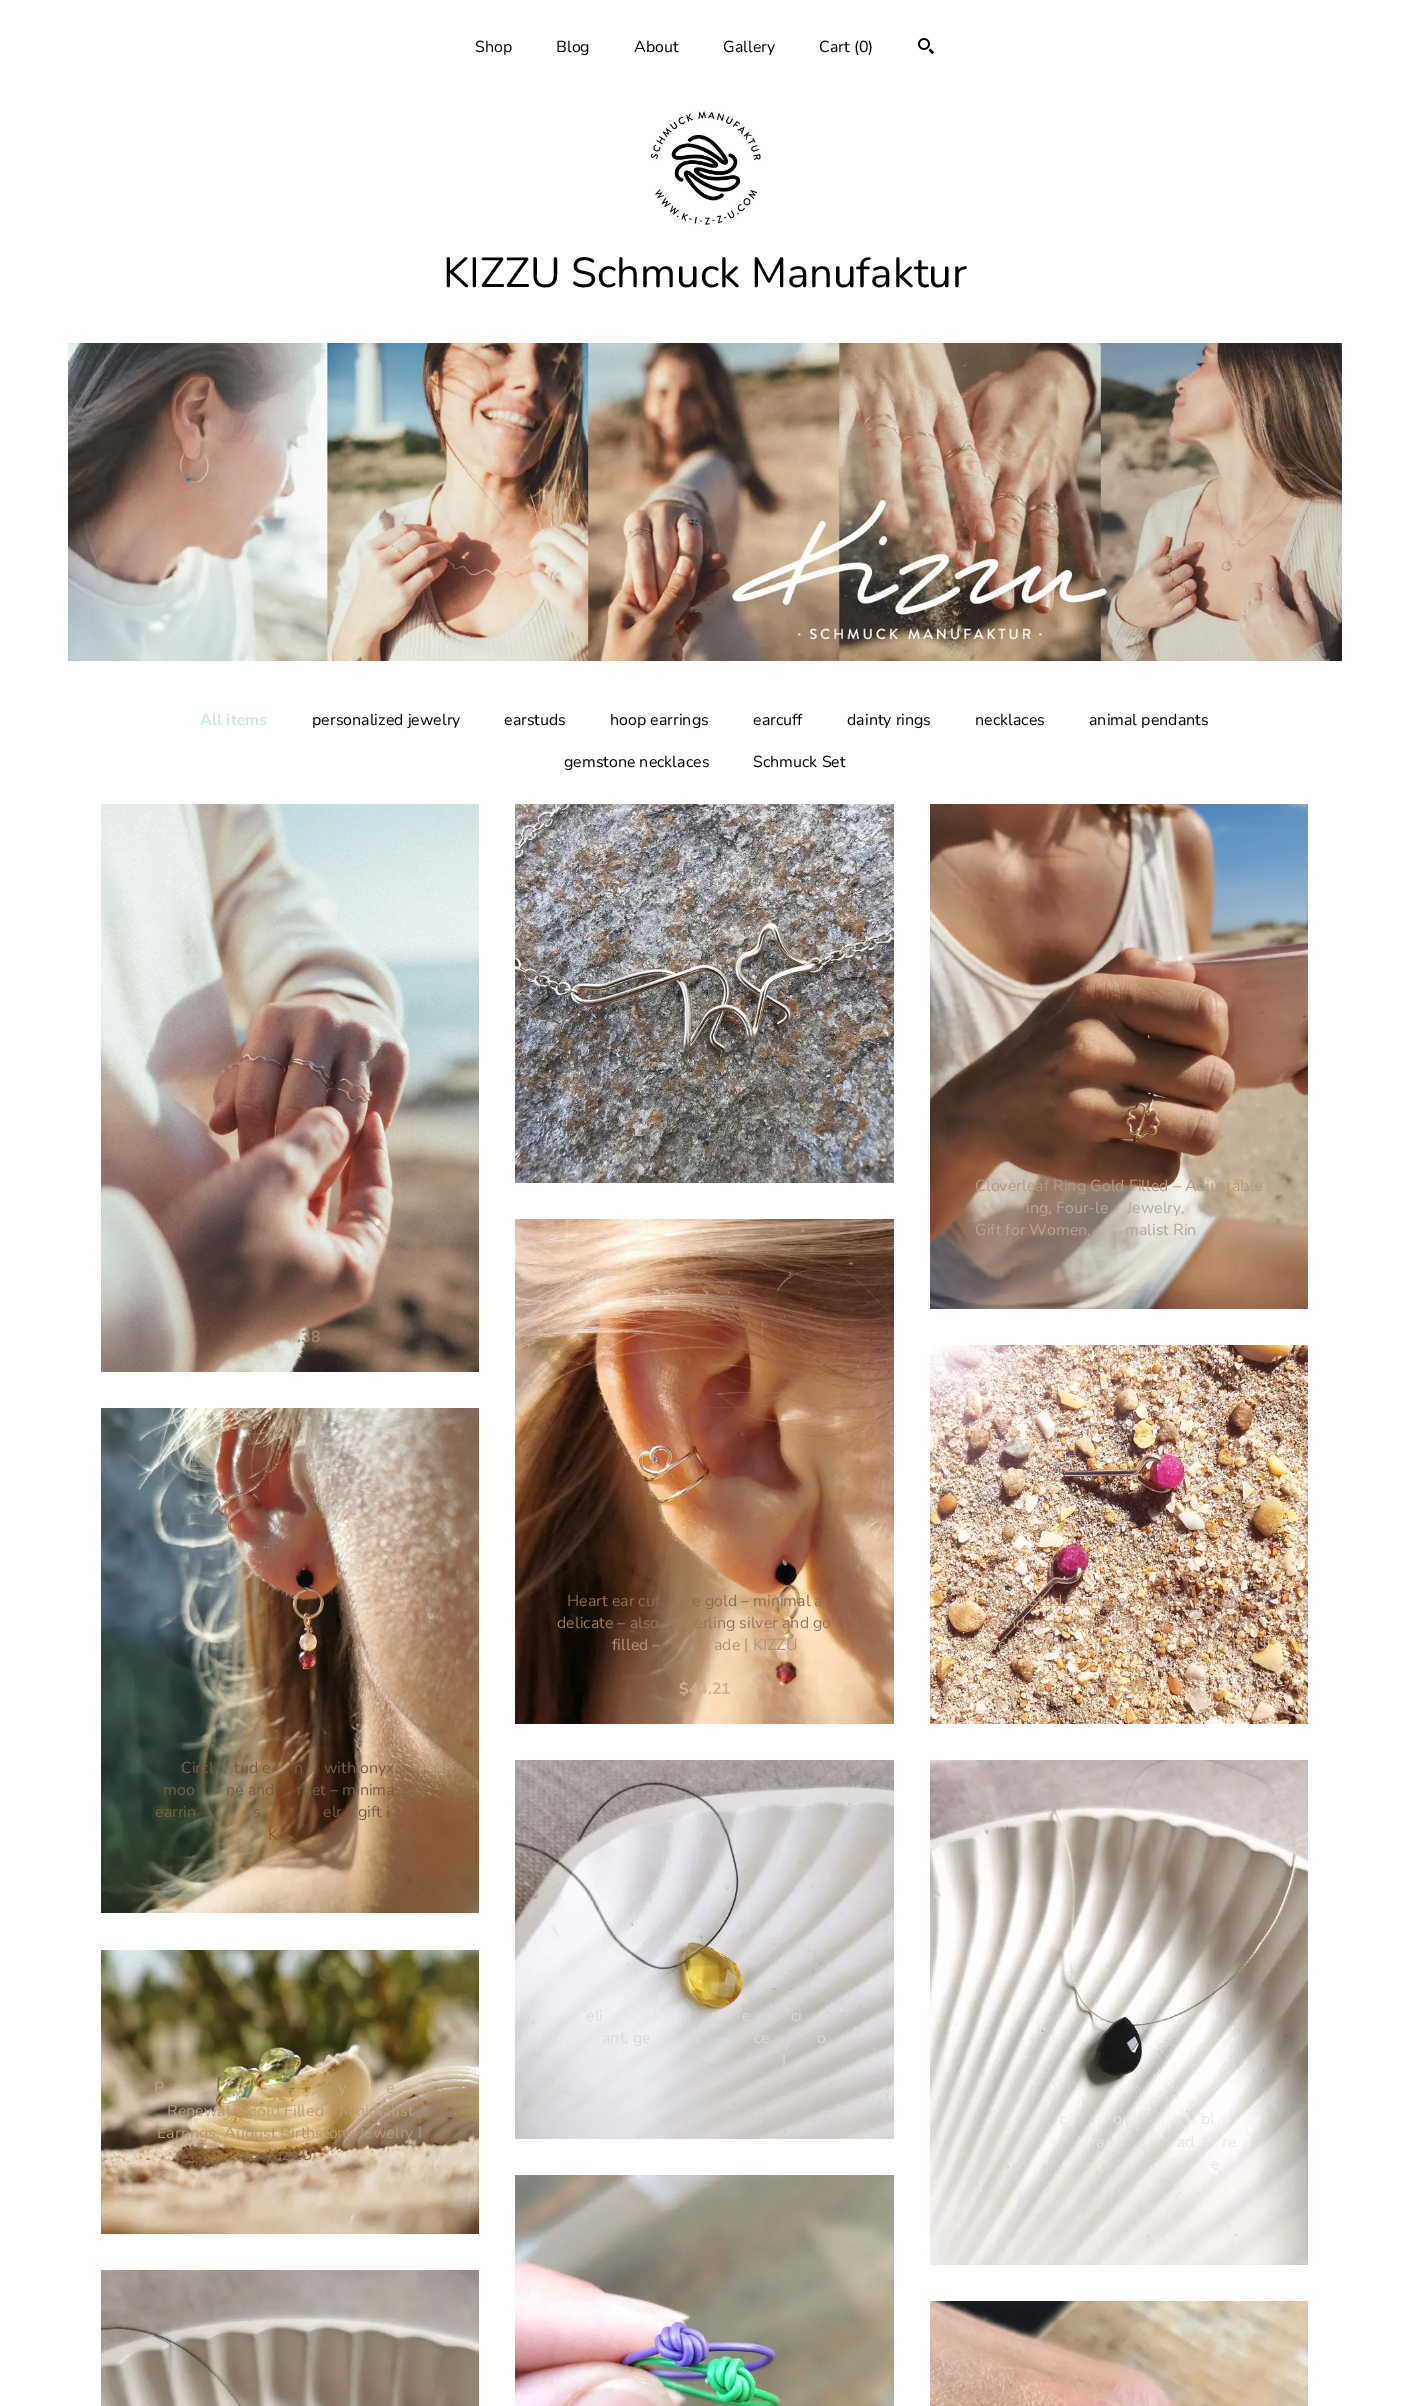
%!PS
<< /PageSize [1409 2406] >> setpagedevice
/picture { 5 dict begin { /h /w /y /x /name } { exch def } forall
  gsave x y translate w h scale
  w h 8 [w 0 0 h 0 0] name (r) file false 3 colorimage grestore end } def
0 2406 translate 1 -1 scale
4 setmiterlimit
1 setgray
0 0 1409 2406 rectfill
/Nunito-Regular [16 0 0 -16 0 0] selectfont
0 setgray
475 52 moveto (Shop) show
556 52 moveto (Blog) show
634 52 moveto (About) show
723 52 moveto (Gallery) show
819 52 moveto (Cart \(0\)) show
(img1.rgb) 918 38 16 16 picture
(img2.rgb) 650 111 111 114 picture
/Nunito-Regular [42 0 0 -42 0 0] selectfont
443 287 moveto (KIZZU Schmuck Manufaktur) show
(img3.rgb) 68 343 1274 318 picture
/Nunito-Bold [16 0 0 -16 0 0] selectfont
0.82 0.906 0.898 setrgbcolor
200 725 moveto (All items) show
/Nunito-Regular [16 0 0 -16 0 0] selectfont
0 setgray
312 725 moveto (personalized jewelry) show
504 725 moveto (earstuds) show
610 725 moveto (hoop earrings) show
753 725 moveto (earcuff) show
847 725 moveto (dainty rings) show
975 725 moveto (necklaces) show
1089 725 moveto (animal pendants) show
564 767 moveto (gemstone necklaces) show
753 767 moveto (Schmuck Set) show
(img4.rgb) 101 804 378 568 picture
/Nunito-Bold [16 0 0 -16 0 0] selectfont
0.639 0.529 0.455 setrgbcolor
297 1342 moveto (.38) show
(img5.rgb) 101 1408 378 505 picture
/Nunito-Regular [16 0 0 -16 0 0] selectfont
0.451 0.373 0.267 setrgbcolor
181 1773 moveto (Circl) show
234 1773 moveto (tud e) show
294 1773 moveto (n) show
324 1773 moveto (with onyx,) show
163 1795 moveto (moo) show
226 1795 moveto (ne and) show
297 1795 moveto (rnet – minima) show
155 1817 moveto (earrin) show
253 1817 moveto (s) show
323 1817 moveto (elr) show
358 1817 moveto (gift i) show
0.51 0.353 0.204 setrgbcolor
268 1840 moveto (K) show
(img6.rgb) 101 1950 378 284 picture
0.753 0.671 0.506 setrgbcolor
154 2093 moveto (P) show
338 2093 moveto (y) show
386 2093 moveto (e) show
0.722 0.627 0.471 setrgbcolor
167 2116 moveto (Renewal - Gold Filled - Minimalist) show
0.706 0.6 0.439 setrgbcolor
157 2138 moveto (Earrings, August Birthstone Jewelry I) show
0.561 0.427 0.278 setrgbcolor
268 2160 moveto (KIZZU) show
(img7.rgb) 101 2270 378 136 picture
(img8.rgb) 515 804 379 379 picture
0.463 0.431 0.412 setrgbcolor
776 1042 moveto (t) show
0.506 0.49 0.475 setrgbcolor
585 1087 moveto (jewelry, for ocean lovers, wire art) show
729 1109 moveto (.) show
(img9.rgb) 515 1219 379 505 picture
0.561 0.431 0.314 setrgbcolor
567 1606 moveto (Heart ear cuf) show
692 1606 moveto (e gold – minimal a) show
0.592 0.467 0.357 setrgbcolor
557 1628 moveto (delicate – also) show
694 1628 moveto (erling silver and go) show
0.71 0.576 0.451 setrgbcolor
612 1650 moveto (filled –) show
714 1650 moveto (ade | KIZZU) show
/Nunito-Bold [16 0 0 -16 0 0] selectfont
0.835 0.698 0.565 setrgbcolor
679 1694 moveto ($44.21) show
(img10.rgb) 515 1760 379 379 picture
/Nunito-Regular [16 0 0 -16 0 0] selectfont
0.863 0.859 0.863 setrgbcolor
586 2021 moveto (eli) show
742 2021 moveto (e) show
791 2021 moveto (ci) show
602 2043 moveto (ant, ge) show
754 2043 moveto (ce) show
817 2043 moveto (o) show
782 2065 moveto (I) show
(img11.rgb) 515 2175 379 231 picture
(img12.rgb) 930 804 378 505 picture
0.694 0.608 0.533 setrgbcolor
975 1191 moveto (Cloverleaf Ring Gold Filled – Adjustable) show
0.722 0.667 0.608 setrgbcolor
1026 1213 moveto (ing, Four-le) show
1127 1213 moveto (Jewelry,) show
0.718 0.643 0.592 setrgbcolor
975 1235 moveto (Gift for Women,) show
1125 1235 moveto (malist Rin) show
(img13.rgb) 930 1345 378 379 picture
0.749 0.627 0.525 setrgbcolor
987 1606 moveto (Ruby Stud Earrings – July Birthstone,) show
986 1628 moveto (Handmade Ruby Earrings, Minimalist) show
0.776 0.663 0.545 setrgbcolor
971 1650 moveto (Jewelry Gift Idea in Silver or Gold I KIZZU) show
/Nunito-Bold [16 0 0 -16 0 0] selectfont
0.816 0.686 0.537 setrgbcolor
1093 1694 moveto ($31.93) show
(img14.rgb) 930 1760 378 505 picture
/Nunito-Regular [16 0 0 -16 0 0] selectfont
0.914 0.898 0.886 setrgbcolor
1059 2124 moveto (c) show
1113 2124 moveto (o) show
1201 2124 moveto (bl) show
1096 2147 moveto (a) show
1177 2147 moveto (ad) show
1222 2147 moveto (re) show
1211 2169 moveto (e) show
(img15.rgb) 930 2301 378 105 picture
showpage
